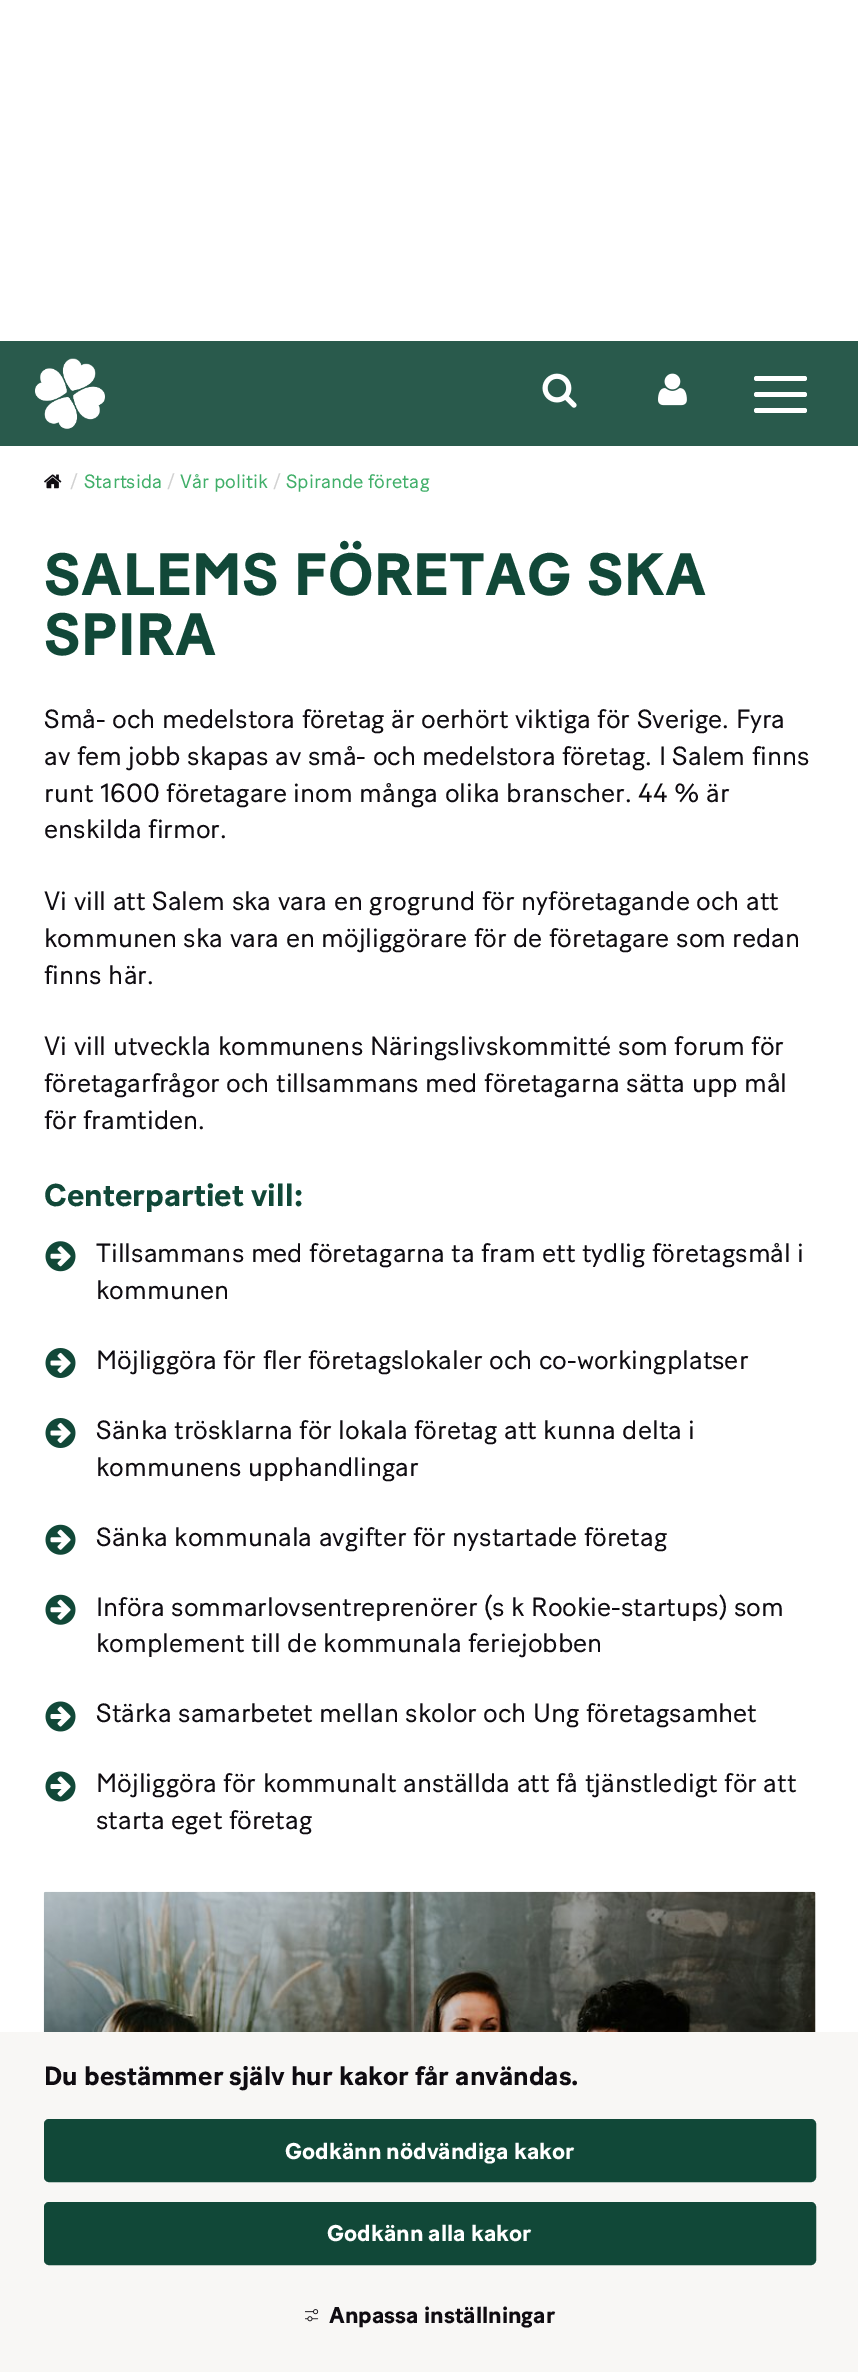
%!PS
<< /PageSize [858 2372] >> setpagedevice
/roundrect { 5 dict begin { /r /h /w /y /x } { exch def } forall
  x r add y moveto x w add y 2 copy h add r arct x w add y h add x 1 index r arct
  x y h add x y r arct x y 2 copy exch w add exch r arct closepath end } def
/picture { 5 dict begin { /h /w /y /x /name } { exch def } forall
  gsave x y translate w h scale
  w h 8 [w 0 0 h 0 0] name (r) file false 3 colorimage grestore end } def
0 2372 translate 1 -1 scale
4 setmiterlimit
1 setgray
0 0 858 2372 rectfill
0.161 0.353 0.298 setrgbcolor
0 341 858 105 rectfill
(img1.rgb) 35 358 70 71 picture
(img2.rgb) 542 373 35 35 picture
(img3.rgb) 658 373 29 33 picture
1 setgray
754 376 53 5 2.5 roundrect fill
754 392 53 5 2.5 roundrect fill
754 408 53 5 2.5 roundrect fill
(img4.rgb) 44 474 18 15 picture
/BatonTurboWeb-Regular [19.25 0 0 -19.25 0 0] selectfont
0.82 setgray
70 488 moveto (/) show
0.251 0.686 0.412 setrgbcolor
84 488 moveto (Startsida) show
0.82 setgray
167 488 moveto (/) show
0.251 0.686 0.412 setrgbcolor
180 488 moveto (Vår politik) show
0.82 setgray
273 488 moveto (/) show
0.251 0.686 0.412 setrgbcolor
286 488 moveto (Spirande företag) show
/BatonTurboWeb-Bold [59.5 0 0 -59.5 0 0] selectfont
0.067 0.282 0.22 setrgbcolor
44 595 moveto 0.6 0 (SALEMS FÖRETAG SKA) ashow
44 655 moveto 0.6 0 (SPIRA) ashow
/BatonTurboWeb-Regular [26.25 0 0 -26.25 0 0] selectfont
0.059 0.047 0.067 setrgbcolor
44 728 moveto (Små- och medelstora företag är oerhört viktiga för Sverige. Fyra) show
44 765 moveto (av fem jobb skapas av små- och medelstora företag. I Salem finns) show
44 802 moveto (runt 1600 företagare inom många olika branscher. 44 % är) show
44 838 moveto (enskilda firmor.) show
44 910 moveto (Vi vill att Salem ska vara en grogrund för nyföretagande och att) show
44 947 moveto (kommunen ska vara en möjliggörare för de företagare som redan) show
44 984 moveto (finns här.) show
44 1055 moveto (Vi vill utveckla kommunens Näringslivskommitté som forum för) show
44 1092 moveto (företagarfrågor och tillsammans med företagarna sätta upp mål) show
44 1129 moveto (för framtiden.) show
/BatonTurboWeb-Bold [31.5 0 0 -31.5 0 0] selectfont
0.067 0.282 0.22 setrgbcolor
44 1206 moveto (Centerpartiet vill:) show
(img5.rgb) 45 1241 31 31 picture
/BatonTurboWeb-Regular [26.25 0 0 -26.25 0 0] selectfont
0.059 0.047 0.067 setrgbcolor
96 1262 moveto (Tillsammans med företagarna ta fram ett tydlig företagsmål i) show
96 1299 moveto (kommunen) show
(img6.rgb) 45 1348 31 30 picture
96 1369 moveto (Möjliggöra för fler företagslokaler och co-workingplatser) show
(img6.rgb) 45 1418 31 30 picture
96 1439 moveto (Sänka trösklarna för lokala företag att kunna delta i) show
96 1476 moveto (kommunens upphandlingar) show
(img7.rgb) 45 1524 31 31 picture
96 1546 moveto (Sänka kommunala avgifter för nystartade företag) show
(img7.rgb) 45 1594 31 31 picture
96 1616 moveto (Införa sommarlovsentreprenörer \(s k Rookie-startups\) som) show
96 1652 moveto (komplement till de kommunala feriejobben) show
(img8.rgb) 45 1701 31 31 picture
96 1722 moveto (Stärka samarbetet mellan skolor och Ung företagsamhet) show
(img8.rgb) 45 1771 31 31 picture
96 1792 moveto (Möjliggöra för kommunalt anställda att få tjänstledigt för att) show
96 1829 moveto (starta eget företag) show
(img9.rgb) 43 1891 773 141 picture
0.973 0.969 0.961 setrgbcolor
0 2032 858 340 rectfill
/BatonTurboWeb-Bold [26.25 0 0 -26.25 0 0] selectfont
0.059 0.047 0.067 setrgbcolor
44 2085 moveto (Du bestämmer själv hur kakor får användas.) show
0.067 0.282 0.22 setrgbcolor
45 2120 770 61 4 roundrect gsave fill grestore
2 setlinewidth
stroke
/BatonTurboWeb-Bold [22.75 0 0 -22.75 0 0] selectfont
1 setgray
285 2159 moveto (Godkänn nödvändiga kakor) show
0.067 0.282 0.22 setrgbcolor
45 2203 770 61 4 roundrect gsave fill grestore
stroke
1 setgray
327 2241 moveto (Godkänn alla kakor) show
(img10.rgb) 305 2309 14 13 picture
0.059 0.047 0.067 setrgbcolor
329 2323 moveto (Anpassa inställningar) show
showpage
